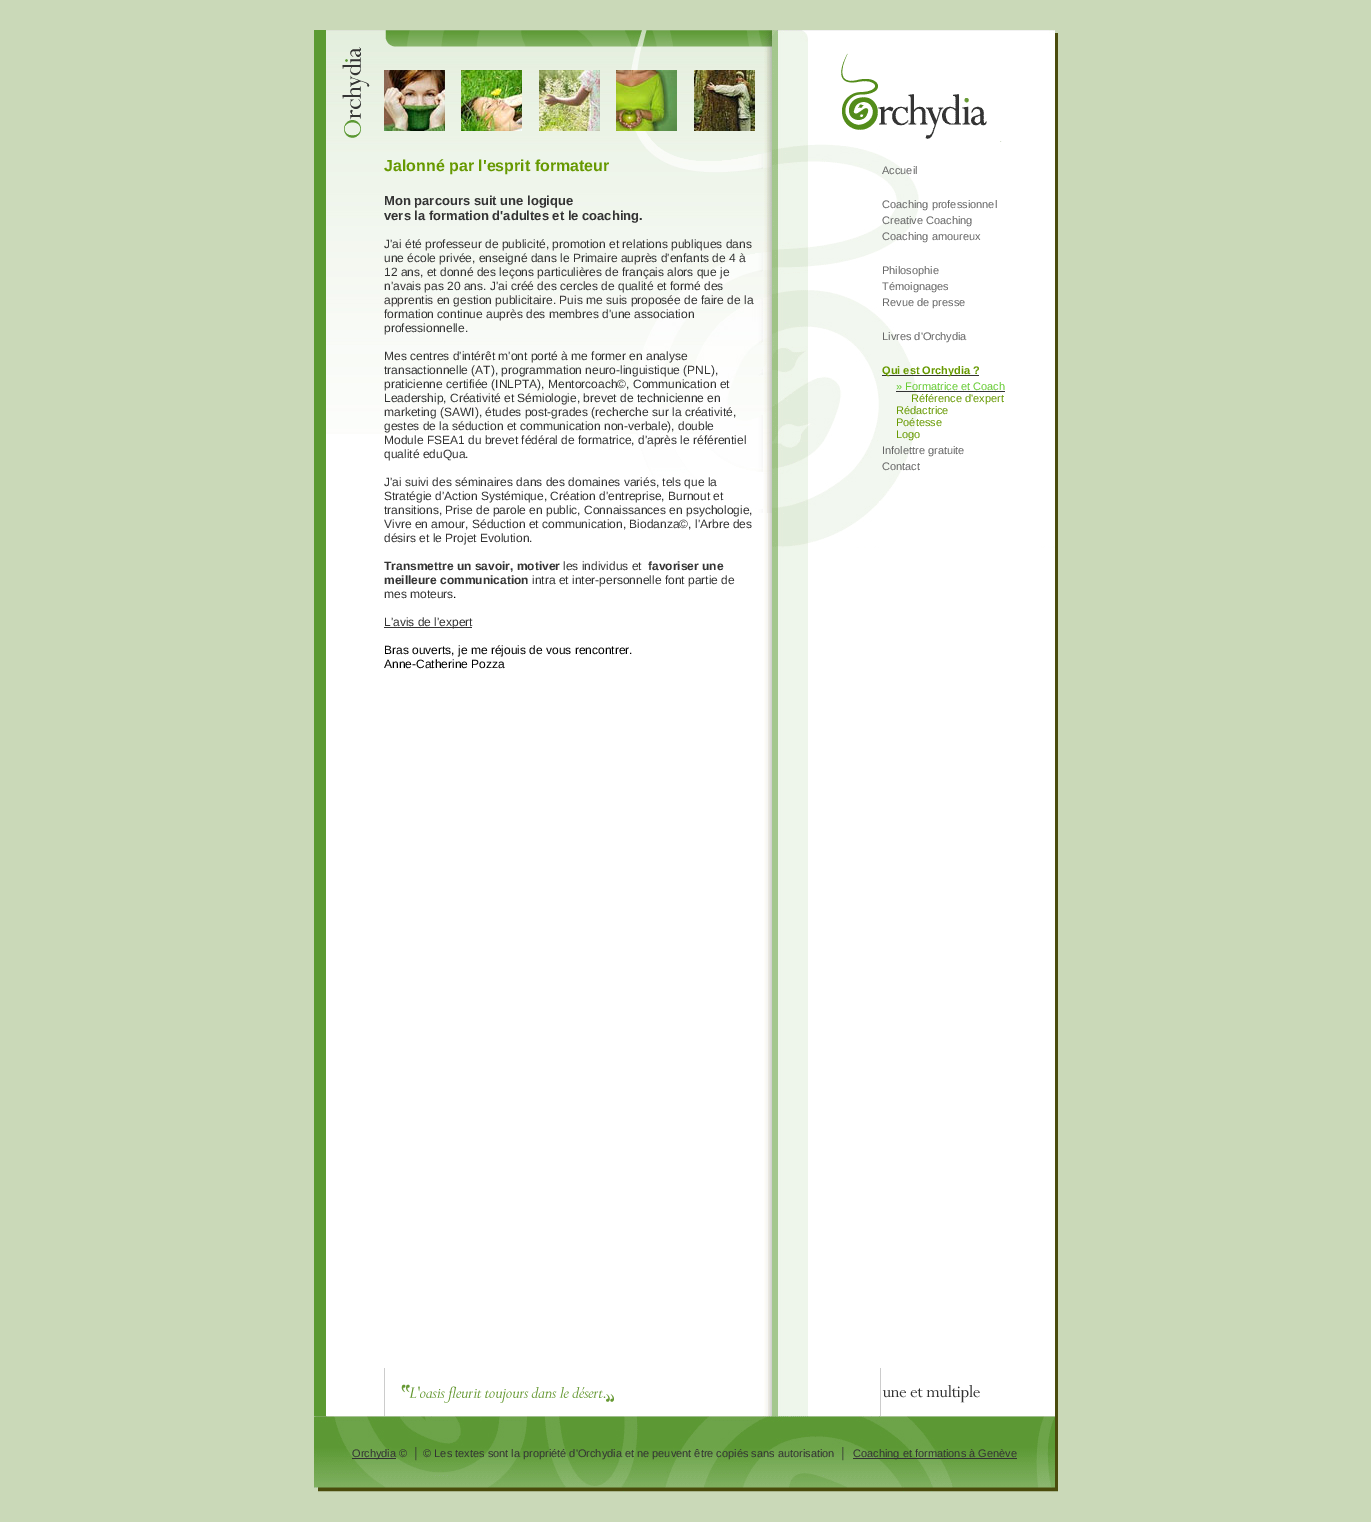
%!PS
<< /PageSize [1371 1522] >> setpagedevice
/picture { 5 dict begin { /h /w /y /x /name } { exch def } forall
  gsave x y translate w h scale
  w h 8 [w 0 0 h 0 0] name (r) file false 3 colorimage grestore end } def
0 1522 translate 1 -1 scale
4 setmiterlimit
0.792 0.851 0.722 setrgbcolor
0 0 1371 1522 rectfill
0.357 0.604 0.196 setrgbcolor
314 30 12 1386 rectfill
1 setgray
326 434 438 982 rectfill
(img1.rgb) 326 30 437 404 picture
(img2.rgb) 342 47 28 91 picture
(img3.rgb) 764 513 8 903 picture
(img4.rgb) 385 30 387 17 picture
(img5.rgb) 631 47 141 466 picture
(img6.rgb) 384 70 61 61 picture
(img7.rgb) 461 70 61 61 picture
(img8.rgb) 539 70 61 61 picture
(img9.rgb) 616 70 61 61 picture
(img10.rgb) 694 70 61 61 picture
/LiberationSans-Bold [16 0 0 -16 0 0] selectfont
0.4 0.6 0 setrgbcolor
384 171 moveto (Jalonné par l'esprit formateur) show
/LiberationSans-Bold [13 0 0 -13 0 0] selectfont
0.2 setgray
384 205 moveto (Mon parcours suit une logique) show
384 220 moveto (vers la formation d'adultes et le coaching.) show
/LiberationSans-Regular [12 0 0 -12 0 0] selectfont
384 248 moveto (J'ai été professeur de publicité, promotion et relations publiques dans) show
384 262 moveto (une école privée, enseigné dans le Primaire auprès d'enfants de 4 à) show
384 276 moveto (12 ans, et donné des leçons particulières de français alors que je) show
384 290 moveto (n'avais pas 20 ans. J'ai créé des cercles de qualité et formé des) show
384 304 moveto (apprentis en gestion publicitaire. Puis me suis proposée de faire de la) show
384 318 moveto (formation continue auprès des membres d'une association) show
384 332 moveto (professionnelle.) show
384 360 moveto (Mes centres d'intérêt m'ont porté à me former en analyse) show
384 374 moveto (transactionnelle \(AT\), programmation neuro-linguistique \(PNL\),) show
384 388 moveto (praticienne certifiée \(INLPTA\), Mentorcoach©, Communication et) show
384 402 moveto (Leadership, Créativité et Sémiologie, brevet de technicienne en) show
384 416 moveto (marketing \(SAWI\), études post-grades \(recherche sur la créativité,) show
384 430 moveto (gestes de la séduction et communication non-verbale\), double) show
384 444 moveto (Module FSEA1 du brevet fédéral de formatrice, d'après le référentiel) show
384 458 moveto (qualité eduQua.) show
384 486 moveto (J'ai suivi des séminaires dans des domaines variés, tels que la) show
384 500 moveto (Stratégie d'Action Systémique, Création d'entreprise, Burnout et) show
384 514 moveto (transitions, Prise de parole en public, Connaissances en psychologie,) show
384 528 moveto (Vivre en amour, Séduction et communication, Biodanza©, l'Arbre des) show
384 542 moveto (désirs et le Projet Evolution.) show
/LiberationSans-Bold [12 0 0 -12 0 0] selectfont
384 570 moveto (Transmettre un savoir, motiver) show
/LiberationSans-Regular [12 0 0 -12 0 0] selectfont
563 570 moveto (les individus et) show
/LiberationSans-Bold [12 0 0 -12 0 0] selectfont
648 570 moveto (favoriser une) show
384 584 moveto (meilleure communication) show
/LiberationSans-Regular [12 0 0 -12 0 0] selectfont
532 584 moveto (intra et inter-personnelle font partie de) show
384 598 moveto (mes moteurs) show
0 setgray
453 598 moveto (.) show
0.2 setgray
384 627 88 1 rectfill
384 626 moveto (L'avis de l'expert) show
0 setgray
384 654 moveto (Bras ouverts, je me réjouis de vous rencontrer.) show
384 668 moveto (Anne-Catherine Pozza) show
(img11.rgb) 384 1368 230 48 picture
(img12.rgb) 772 128 283 1288 picture
(img13.rgb) 772 30 283 518 picture
/LiberationSans-Regular [11 0 0 -11 0 0] selectfont
0.4 setgray
882 174 moveto (Accueil) show
882 208 moveto (Coaching professionnel) show
882 224 moveto (Creative Coaching) show
882 240 moveto (Coaching amoureux) show
882 274 moveto (Philosophie) show
882 290 moveto (Témoignages) show
882 306 moveto (Revue de presse) show
882 340 moveto (Livres d'Orchydia) show
0.2 setgray
882 375 97 1 rectfill
/LiberationSans-Bold [11 0 0 -11 0 0] selectfont
0.4 0.6 0 setrgbcolor
882 374 moveto (Qui est Orchydia ?) show
/LiberationSans-Regular [11 0 0 -11 0 0] selectfont
0.4 0.8 0.2 setrgbcolor
896 390 moveto (» Formatrice et Coach) show
0.2 setgray
896 391 109 1 rectfill
0.4 0.6 0 setrgbcolor
911 402 moveto (Référence d'expert) show
896 414 moveto (Rédactrice) show
896 426 moveto (Poétesse) show
896 438 moveto (Logo) show
0.4 setgray
882 454 moveto (Infolettre gratuite) show
882 470 moveto (Contact) show
(img14.rgb) 880 1368 100 48 picture
0.29 0.298 0.051 setrgbcolor
1055 30 3 1386 rectfill
0.792 0.851 0.722 setrgbcolor
1055 30 3 3 rectfill
(img15.rgb) 314 1416 744 76 picture
0.2 setgray
352 1458 44 1 rectfill
352 1457 moveto (Orchydia ©  │ © Les textes sont la propriété d'Orchydia et ne peuvent être copiés sans autorisation) show
840 1457 moveto (│) show
853 1458 164 1 rectfill
853 1457 moveto (Coaching et formations à Genève) show
showpage
